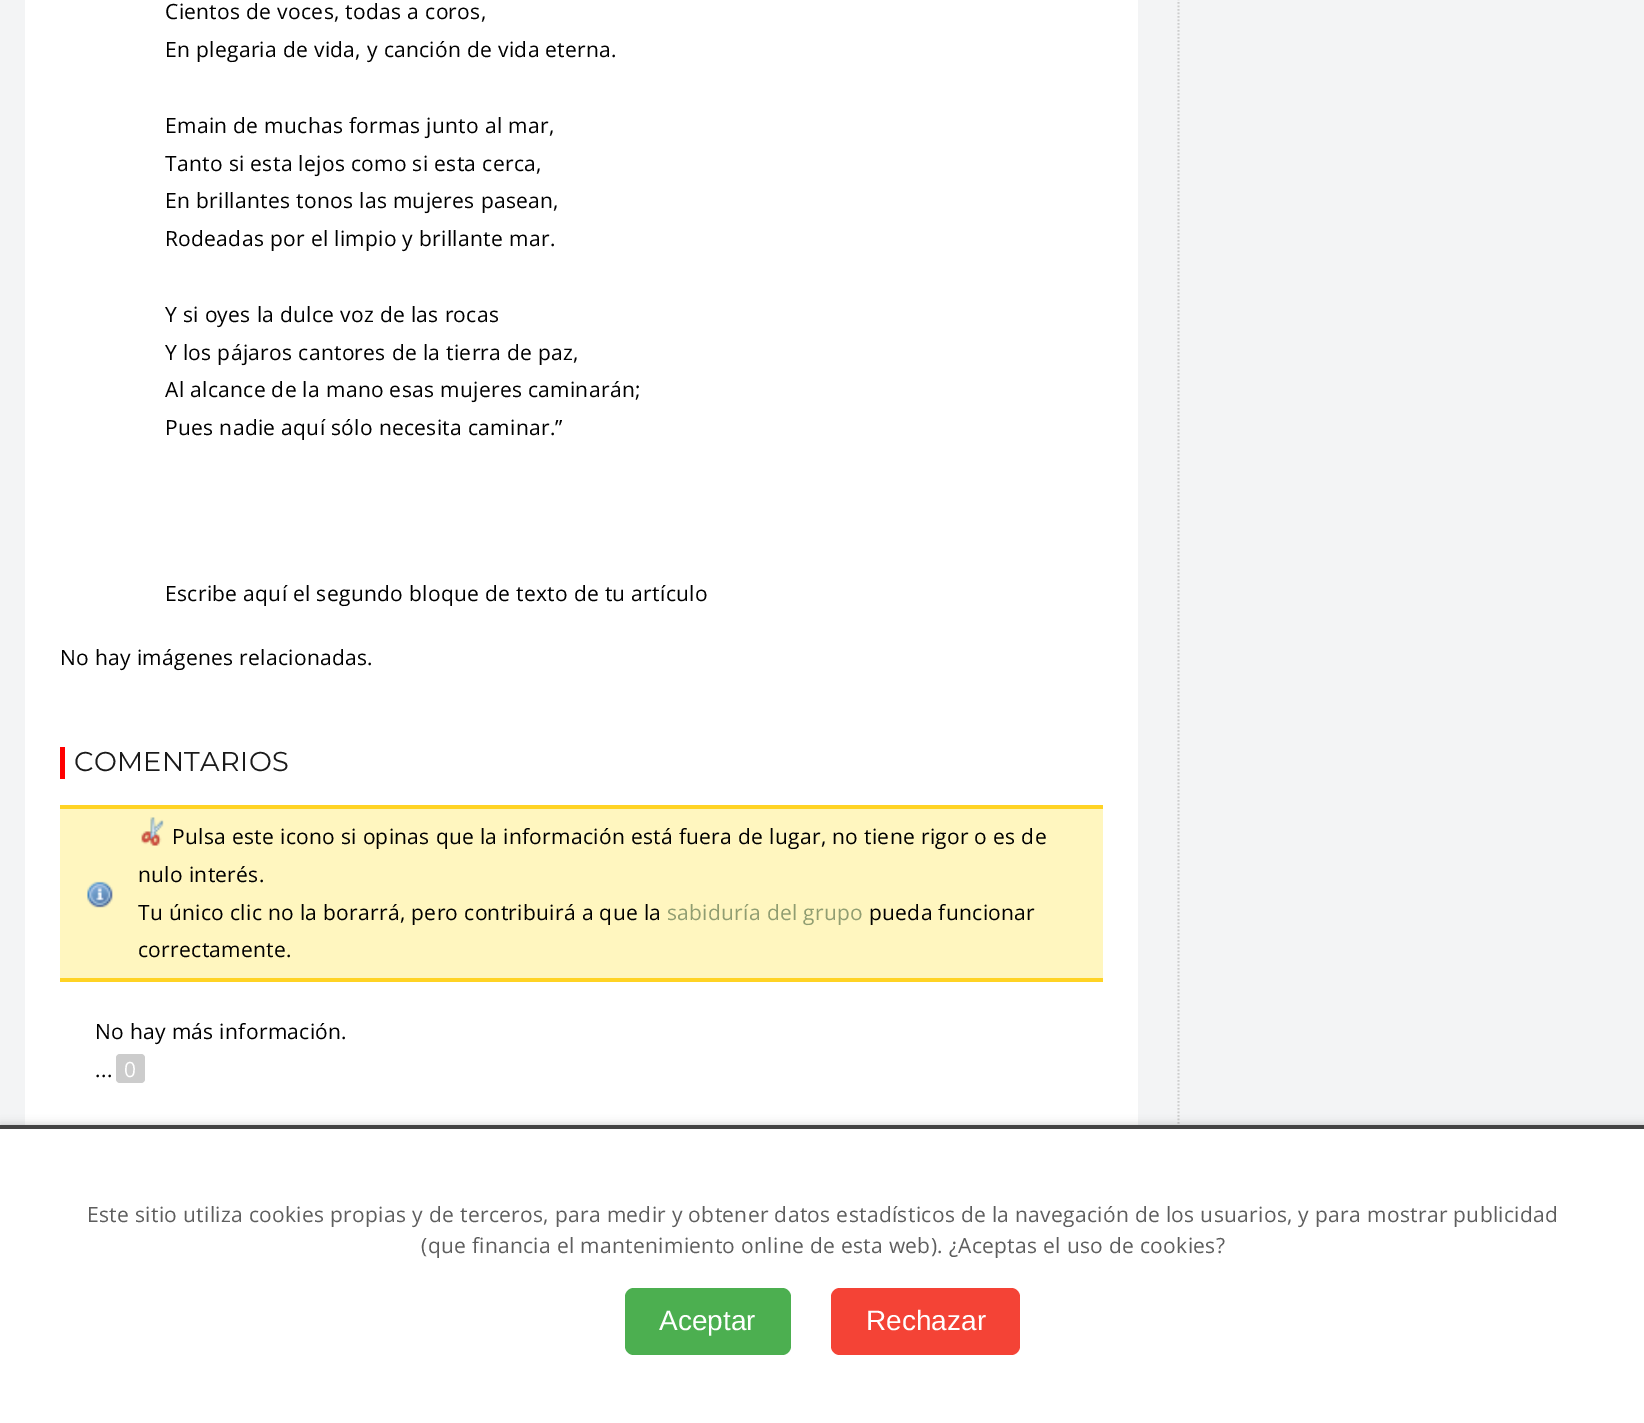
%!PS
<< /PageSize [1644 1423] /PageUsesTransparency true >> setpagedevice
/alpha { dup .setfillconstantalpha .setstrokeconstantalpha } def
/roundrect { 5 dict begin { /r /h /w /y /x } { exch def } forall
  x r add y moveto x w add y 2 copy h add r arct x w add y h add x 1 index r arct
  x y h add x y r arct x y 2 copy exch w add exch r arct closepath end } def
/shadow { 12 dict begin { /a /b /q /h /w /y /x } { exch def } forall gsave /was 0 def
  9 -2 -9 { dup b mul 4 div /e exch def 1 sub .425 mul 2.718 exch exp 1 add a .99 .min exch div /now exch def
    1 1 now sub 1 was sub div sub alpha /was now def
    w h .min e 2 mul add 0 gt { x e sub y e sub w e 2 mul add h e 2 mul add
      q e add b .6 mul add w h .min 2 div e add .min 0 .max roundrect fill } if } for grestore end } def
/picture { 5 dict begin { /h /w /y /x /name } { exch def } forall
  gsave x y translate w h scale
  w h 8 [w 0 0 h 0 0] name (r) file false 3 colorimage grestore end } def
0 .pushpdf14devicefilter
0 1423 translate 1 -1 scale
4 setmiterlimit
0.953 0.957 0.961 setrgbcolor
0 0 1644 1423 rectfill
1 setgray
25 0 1113 1125 rectfill
/OpenSans-Regular [21 0 0 -21 0 0] selectfont
0 setgray
165 19 moveto 0.32 0 (Cientos de voces, todas a coros,) ashow
165 57 moveto 0.32 0 (En plegaria de vida, y canción de vida eterna.) ashow
165 133 moveto 0.32 0 (Emain de muchas formas junto al mar,) ashow
165 171 moveto 0.32 0 (Tanto si esta lejos como si esta cerca,) ashow
165 208 moveto 0.32 0 (En brillantes tonos las mujeres pasean,) ashow
165 246 moveto 0.32 0 (Rodeadas por el limpio y brillante mar.) ashow
165 322 moveto 0.32 0 (Y si oyes la dulce voz de las rocas) ashow
165 360 moveto 0.32 0 (Y los pájaros cantores de la tierra de paz,) ashow
165 397 moveto 0.32 0 (Al alcance de la mano esas mujeres caminarán;) ashow
165 435 moveto 0.32 0 (Pues nadie aquí sólo necesita caminar.”) ashow
165 601 moveto 0.32 0 (Escribe aquí el segundo bloque de texto de tu artículo) ashow
60 665 moveto 0.32 0 (No hay imágenes relacionadas.) ashow
1 0 0 setrgbcolor
60 747 5 32 rectfill
/Montserrat-Regular [27.25 0 0 -27.25 0 0] selectfont
0.102 setgray
74 771 moveto 0.32 0 (COMENTARIOS) ashow
1 0.965 0.749 setrgbcolor
60 809 1043 169 rectfill
(img1.rgb) 87 881 26 27 picture
1 0.827 0.141 setrgbcolor
60 805 1043 4 rectfill
60 978 1043 4 rectfill
(img2.rgb) 141 817 23 29 picture
/OpenSans-Regular [21 0 0 -21 0 0] selectfont
0 setgray
172 844 moveto 0.32 0 (Pulsa este icono si opinas que la información está fuera de lugar, no tiene rigor o es de) ashow
138 882 moveto 0.32 0 (nulo interés.) ashow
138 920 moveto 0.32 0 (Tu único clic no la borarrá, pero contribuirá a que la) ashow
0.565 0.616 0.443 setrgbcolor
667 920 moveto 0.32 0 (sabiduría del grupo) ashow
0 setgray
869 920 moveto 0.32 0 (pueda funcionar) ashow
138 957 moveto 0.32 0 (correctamente.) ashow
95 1039 moveto 0.32 0 (No hay más información.) ashow
95 1077 moveto 0.32 0 (...) ashow
0.8 setgray
116 1054 29 29 4 roundrect fill
1 setgray
124 1077 moveto 0.32 0 (0) ashow
0.8 setgray
1.8 setlinewidth
[1.75 1.75] 0 setdash
newpath 1178.5 -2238 moveto 1178.5 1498 lineto stroke
0 setgray
0 1125 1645 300 0 4.5 0.2 shadow
1 setgray
0 1129 1644 294 rectfill
0.267 setgray
0 1125 1644 4 rectfill
0.369 setgray
87 1222 moveto 0.32 0 (Este sitio utiliza cookies propias y de terceros, para medir y obtener datos estadísticos de la navegación de los usuarios, y para mostrar publicidad) ashow
421 1253 moveto 0.32 0 (\(que financia el mantenimiento online de esta web\). ¿Aceptas el uso de cookies?) ashow
0.298 0.686 0.314 setrgbcolor
625 1288 166 67 9 roundrect fill
/LiberationSans-Regular [28 0 0 -28 0 0] selectfont
1 setgray
659 1330 moveto (Aceptar) show
0.957 0.263 0.212 setrgbcolor
831 1288 189 67 9 roundrect fill
1 setgray
866 1330 moveto (Rechazar) show
.poppdf14devicefilter showpage
